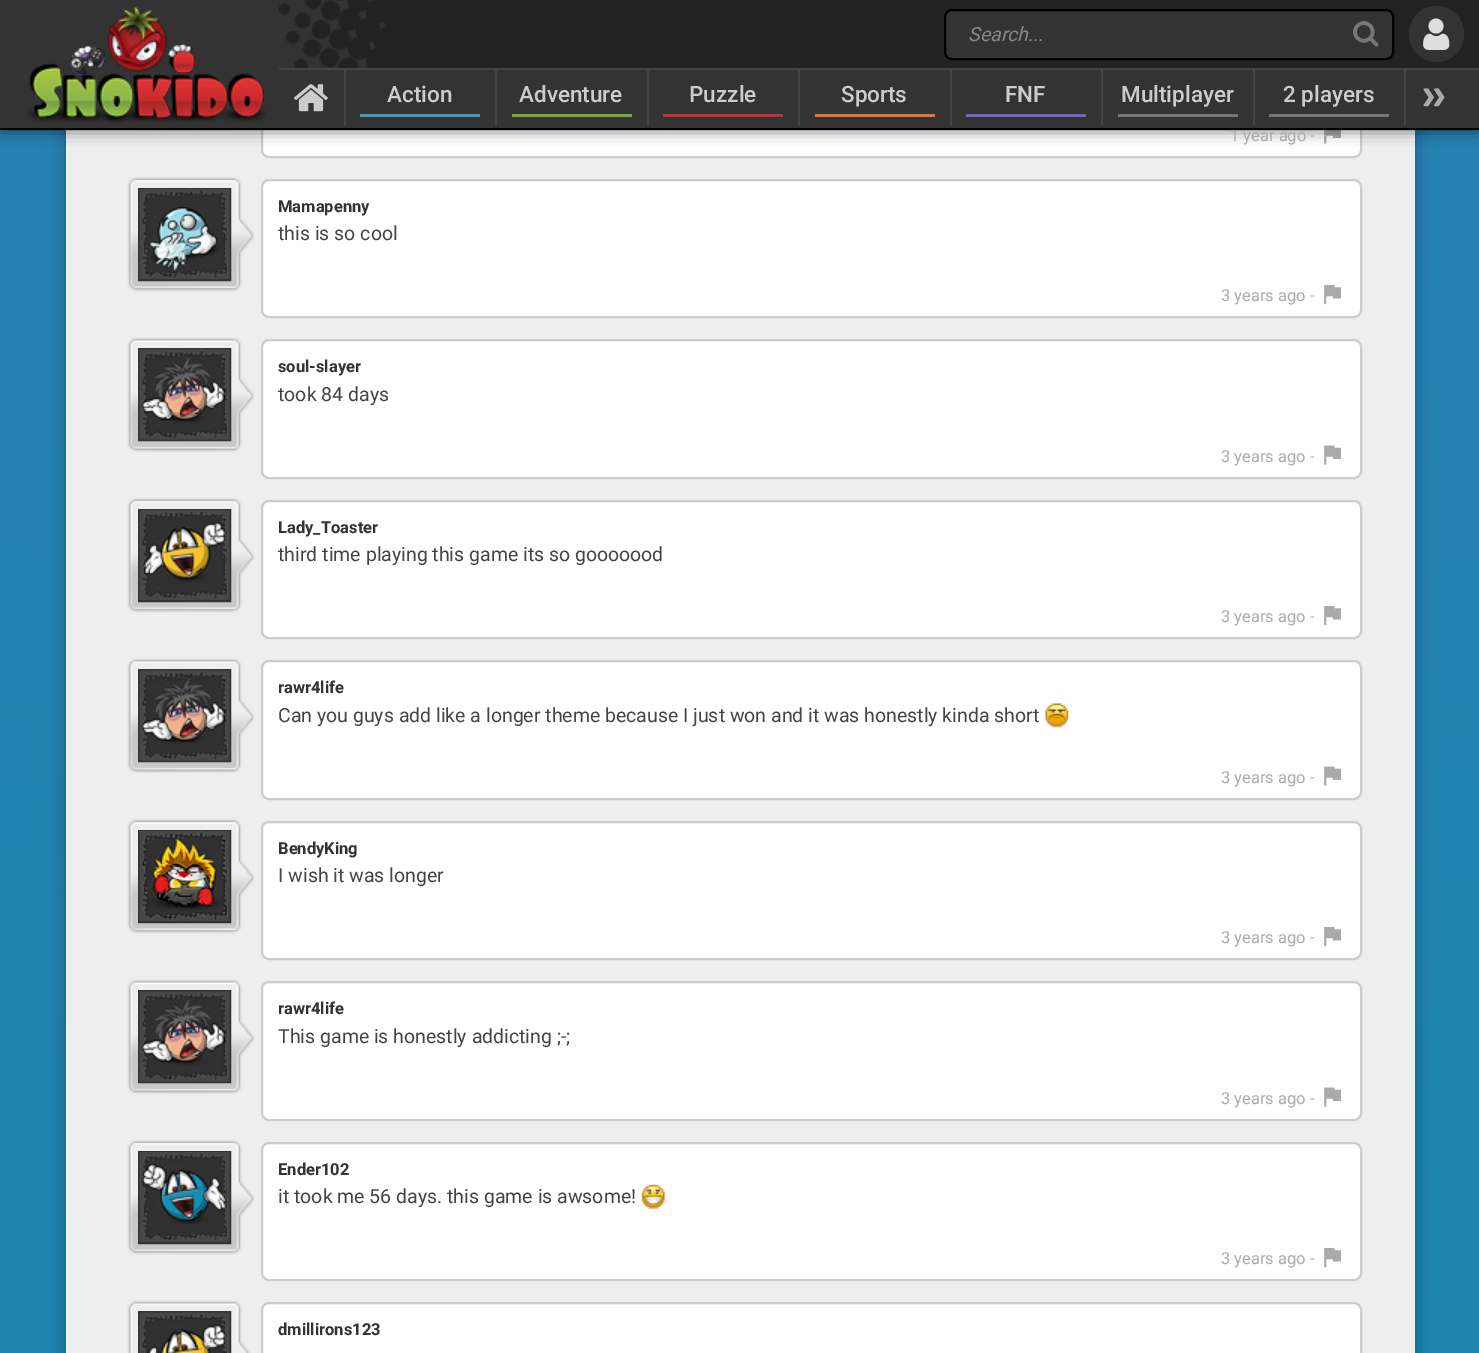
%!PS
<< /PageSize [1479 1353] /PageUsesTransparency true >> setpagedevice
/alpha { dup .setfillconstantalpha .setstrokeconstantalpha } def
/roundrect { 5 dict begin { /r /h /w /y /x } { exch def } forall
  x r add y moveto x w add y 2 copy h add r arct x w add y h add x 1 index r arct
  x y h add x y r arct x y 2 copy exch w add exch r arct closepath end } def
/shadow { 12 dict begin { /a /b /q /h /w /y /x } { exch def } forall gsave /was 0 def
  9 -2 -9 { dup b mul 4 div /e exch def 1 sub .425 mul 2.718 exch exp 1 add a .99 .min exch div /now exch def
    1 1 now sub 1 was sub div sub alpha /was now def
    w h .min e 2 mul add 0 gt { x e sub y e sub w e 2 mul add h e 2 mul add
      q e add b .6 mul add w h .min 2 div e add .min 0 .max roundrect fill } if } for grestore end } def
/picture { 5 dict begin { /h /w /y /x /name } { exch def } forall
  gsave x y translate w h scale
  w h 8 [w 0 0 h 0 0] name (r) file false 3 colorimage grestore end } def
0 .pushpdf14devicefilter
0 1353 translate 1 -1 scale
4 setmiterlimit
1 setgray
0 0 1479 1353 rectfill
(img7.rgb) 0 130 1479 1223 picture
0 setgray
66 -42 1349 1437 15 9 0.3 shadow
0.933 setgray
66 130 1349 1223 rectfill
(img8.rgb) 134 130 102 1 picture
1 setgray
262 19 1099 138 7 roundrect gsave fill grestore
0.8 setgray
2 setlinewidth
stroke
(img9.rgb) 1324 130 17 14 picture
0 setgray
0 0 1479 129 0 7.5 0.7 shadow
0.2 setgray
0 0 1479 128 rectfill
/Roboto-Regular [16.5 0 0 -16.5 0 0] selectfont
0.667 setgray
1230 141 moveto (1 year ago -) show
0 setgray
0 128 1479 2 rectfill
(img1.rgb) 27 7 240 116 picture
(img2.rgb) 279 0 1200 68 picture
0.267 setgray
344 69 2 57 rectfill
495 69 2 57 rectfill
647 69 2 57 rectfill
798 69 2 57 rectfill
950 69 2 57 rectfill
1101 69 2 57 rectfill
1253 69 2 57 rectfill
1404 69 2 57 rectfill
279 68 1200 2 rectfill
0.2 setgray
945 10 448 49 7 roundrect gsave fill grestore
0 setgray
stroke
/Roboto-Italic [19.5 0 0 -19.5 0 0] selectfont
0.533 setgray
968 41 moveto (Search...) show
(img3.rgb) 1353 21 26 26 picture
0.2 setgray
1409 6 55 56 27.5 roundrect fill
(img4.rgb) 1423 18 27 32 picture
(img5.rgb) 294 84 34 28 picture
0.267 0.6 0.733 setrgbcolor
360 114 120 3 rectfill
/Roboto-Medium [22.5 0 0 -22.5 0 0] selectfont
0.8 setgray
387 102 moveto (Action) show
0.467 0.667 0.2 setrgbcolor
512 114 120 3 rectfill
0.8 setgray
519 102 moveto (Adventure) show
0.733 0.2 0.2 setrgbcolor
663 114 120 3 rectfill
0.8 setgray
689 102 moveto (Puzzle) show
0.867 0.467 0.2 setrgbcolor
815 114 120 3 rectfill
0.8 setgray
841 102 moveto (Sports) show
0.467 0.4 0.733 setrgbcolor
966 114 120 3 rectfill
0.8 setgray
1005 102 moveto (FNF) show
0.467 setgray
1118 114 120 3 rectfill
0.8 setgray
1121 102 moveto (Multiplayer) show
0.467 setgray
1269 114 120 3 rectfill
0.8 setgray
1283 102 moveto (2 players) show
(img6.rgb) 1423 88 22 19 picture
(img10.rgb) 127 177 127 115 picture
0.2 setgray
139 189 91 91 rectstroke
(img11.rgb) 139 189 91 90 picture
1 setgray
262 180 1099 137 7 roundrect gsave fill grestore
0.8 setgray
stroke
/Roboto-Bold [16.5 0 0 -16.5 0 0] selectfont
0.2 setgray
278 212 moveto (Mamapenny) show
/Roboto-Regular [19.5 0 0 -19.5 0 0] selectfont
0.267 setgray
278 240 moveto (this is so cool) show
/Roboto-Regular [16.5 0 0 -16.5 0 0] selectfont
0.667 setgray
1221 301 moveto (3 years ago -) show
(img12.rgb) 1324 285 17 20 picture
(img13.rgb) 127 337 127 115 picture
0.2 setgray
139 349 91 91 rectstroke
(img14.rgb) 139 349 91 91 picture
1 setgray
262 340 1099 138 7 roundrect gsave fill grestore
0.8 setgray
stroke
/Roboto-Bold [16.5 0 0 -16.5 0 0] selectfont
0.2 setgray
278 372 moveto (soul-slayer) show
/Roboto-Regular [19.5 0 0 -19.5 0 0] selectfont
0.267 setgray
278 401 moveto (took 84 days) show
/Roboto-Regular [16.5 0 0 -16.5 0 0] selectfont
0.667 setgray
1221 462 moveto (3 years ago -) show
(img15.rgb) 1324 445 17 20 picture
(img10.rgb) 127 498 127 115 picture
0.2 setgray
139 510 91 91 rectstroke
(img16.rgb) 139 510 91 90 picture
1 setgray
262 501 1099 137 7 roundrect gsave fill grestore
0.8 setgray
stroke
/Roboto-Bold [16.5 0 0 -16.5 0 0] selectfont
0.2 setgray
278 533 moveto (Lady_Toaster) show
/Roboto-Regular [19.5 0 0 -19.5 0 0] selectfont
0.267 setgray
278 561 moveto (third time playing this game its so gooooood) show
/Roboto-Regular [16.5 0 0 -16.5 0 0] selectfont
0.667 setgray
1221 622 moveto (3 years ago -) show
(img12.rgb) 1324 606 17 20 picture
(img13.rgb) 127 658 127 115 picture
0.2 setgray
139 670 91 91 rectstroke
(img14.rgb) 139 670 91 91 picture
1 setgray
262 661 1099 138 7 roundrect gsave fill grestore
0.8 setgray
stroke
/Roboto-Bold [16.5 0 0 -16.5 0 0] selectfont
0.2 setgray
278 693 moveto (rawr4life) show
/Roboto-Regular [19.5 0 0 -19.5 0 0] selectfont
0.267 setgray
278 722 moveto (Can you guys add like a longer theme because I just won and it was honestly kinda short) show
(img17.rgb) 1044 702 25 26 picture
/Roboto-Regular [16.5 0 0 -16.5 0 0] selectfont
0.667 setgray
1221 783 moveto (3 years ago -) show
(img15.rgb) 1324 766 17 20 picture
(img10.rgb) 127 819 127 115 picture
0.2 setgray
139 831 91 91 rectstroke
(img18.rgb) 139 831 91 90 picture
1 setgray
262 822 1099 137 7 roundrect gsave fill grestore
0.8 setgray
stroke
/Roboto-Bold [16.5 0 0 -16.5 0 0] selectfont
0.2 setgray
278 854 moveto (BendyKing) show
/Roboto-Regular [19.5 0 0 -19.5 0 0] selectfont
0.267 setgray
278 882 moveto (I wish it was longer) show
/Roboto-Regular [16.5 0 0 -16.5 0 0] selectfont
0.667 setgray
1221 943 moveto (3 years ago -) show
(img12.rgb) 1324 927 17 20 picture
(img13.rgb) 127 979 127 115 picture
0.2 setgray
139 991 91 91 rectstroke
(img14.rgb) 139 991 91 91 picture
1 setgray
262 982 1099 138 7 roundrect gsave fill grestore
0.8 setgray
stroke
/Roboto-Bold [16.5 0 0 -16.5 0 0] selectfont
0.2 setgray
278 1014 moveto (rawr4life) show
/Roboto-Regular [19.5 0 0 -19.5 0 0] selectfont
0.267 setgray
278 1043 moveto (This game is honestly addicting ;-;) show
/Roboto-Regular [16.5 0 0 -16.5 0 0] selectfont
0.667 setgray
1221 1104 moveto (3 years ago -) show
(img15.rgb) 1324 1087 17 20 picture
(img10.rgb) 127 1140 127 115 picture
0.2 setgray
139 1152 91 91 rectstroke
(img19.rgb) 139 1152 91 90 picture
1 setgray
262 1143 1099 137 7 roundrect gsave fill grestore
0.8 setgray
stroke
/Roboto-Bold [16.5 0 0 -16.5 0 0] selectfont
0.2 setgray
278 1175 moveto (Ender102) show
/Roboto-Regular [19.5 0 0 -19.5 0 0] selectfont
0.267 setgray
278 1203 moveto (it took me 56 days. this game is awsome!) show
(img20.rgb) 641 1184 25 25 picture
/Roboto-Regular [16.5 0 0 -16.5 0 0] selectfont
0.667 setgray
1221 1264 moveto (3 years ago -) show
(img12.rgb) 1324 1248 17 20 picture
(img21.rgb) 127 1300 124 53 picture
0.2 setgray
139 1312 91 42 rectstroke
(img22.rgb) 139 1312 91 41 picture
1 setgray
262 1303 1099 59 7 roundrect gsave fill grestore
0.8 setgray
stroke
/Roboto-Bold [16.5 0 0 -16.5 0 0] selectfont
0.2 setgray
278 1335 moveto (dmillirons123) show
.poppdf14devicefilter showpage
